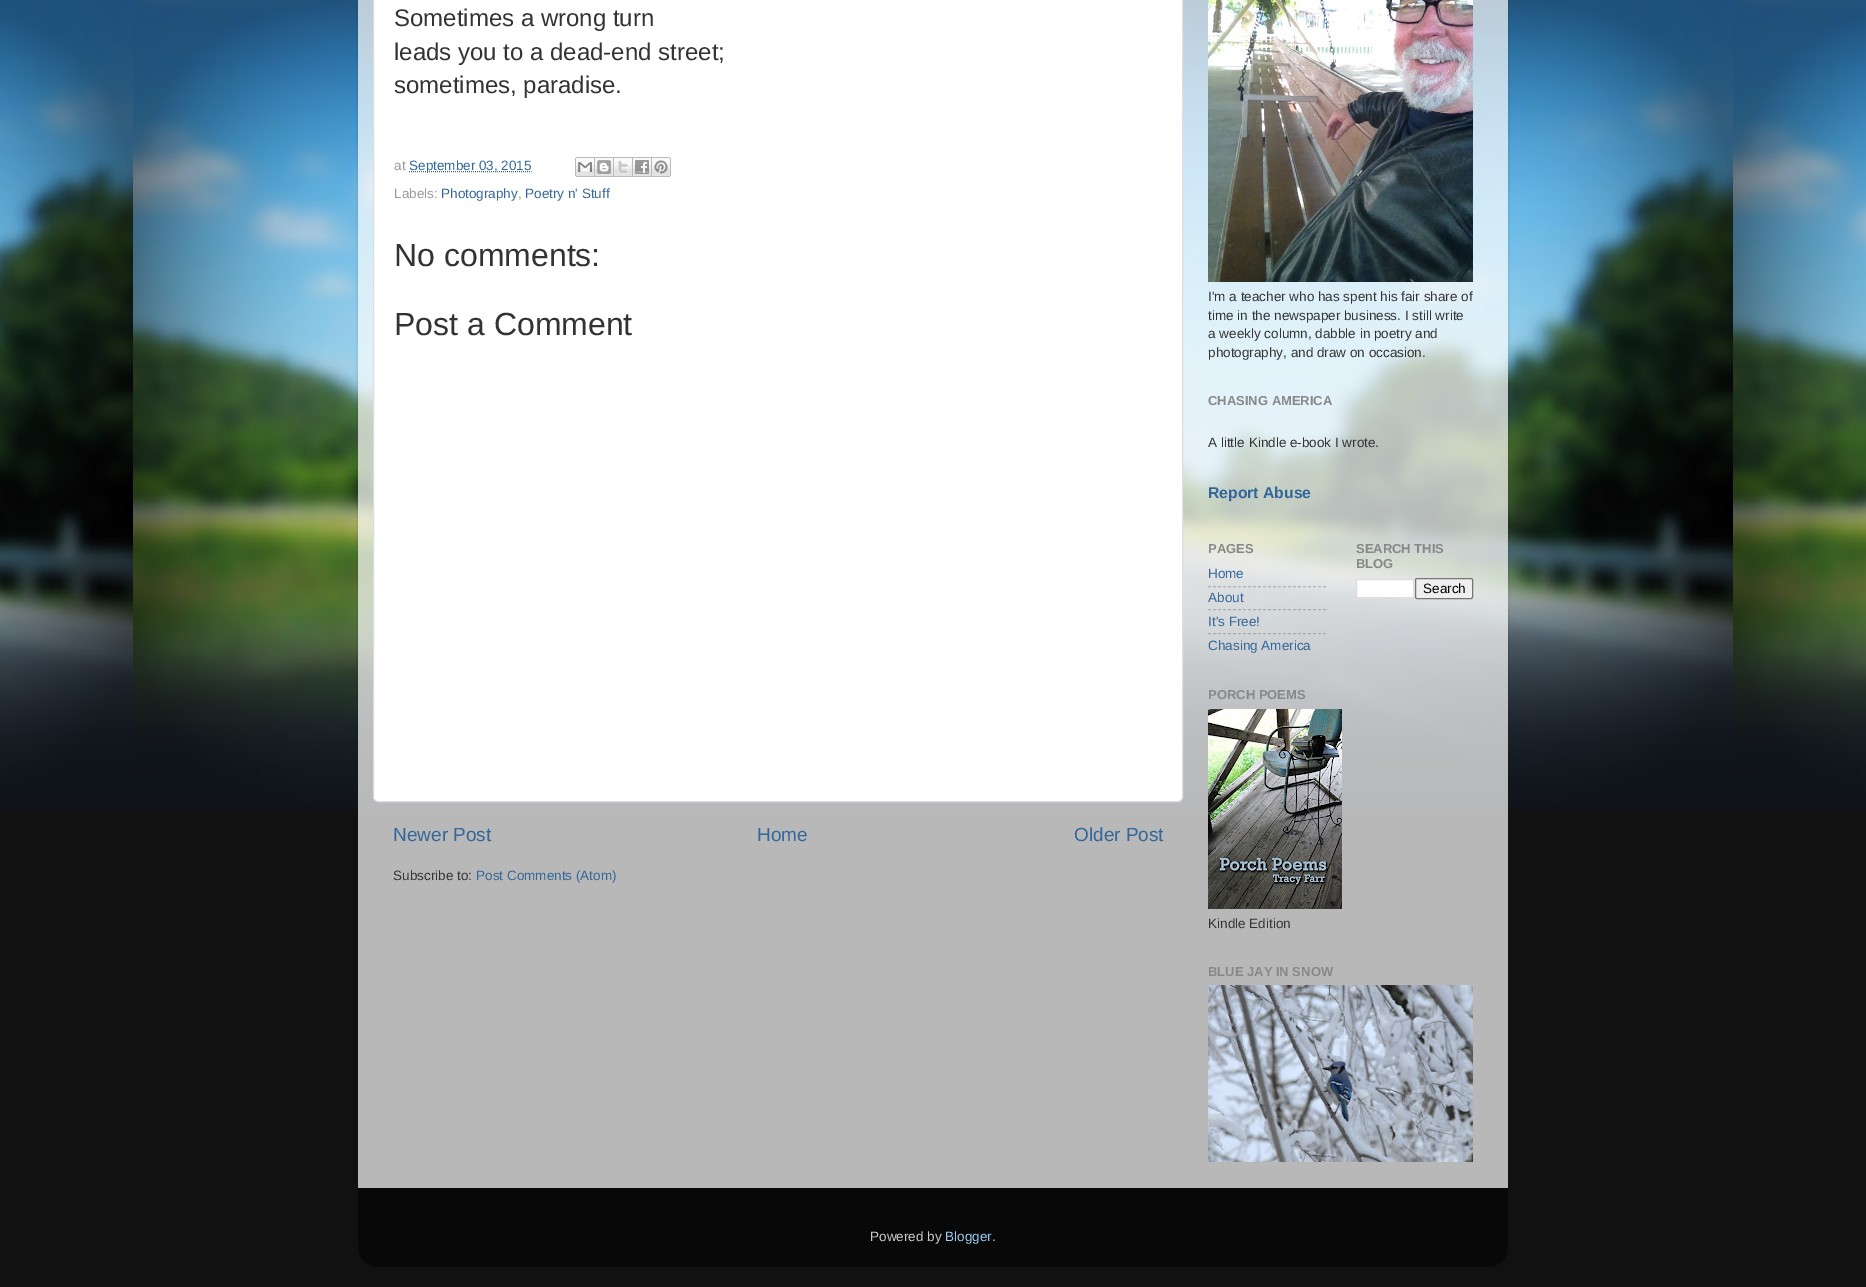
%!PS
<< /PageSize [1866 1287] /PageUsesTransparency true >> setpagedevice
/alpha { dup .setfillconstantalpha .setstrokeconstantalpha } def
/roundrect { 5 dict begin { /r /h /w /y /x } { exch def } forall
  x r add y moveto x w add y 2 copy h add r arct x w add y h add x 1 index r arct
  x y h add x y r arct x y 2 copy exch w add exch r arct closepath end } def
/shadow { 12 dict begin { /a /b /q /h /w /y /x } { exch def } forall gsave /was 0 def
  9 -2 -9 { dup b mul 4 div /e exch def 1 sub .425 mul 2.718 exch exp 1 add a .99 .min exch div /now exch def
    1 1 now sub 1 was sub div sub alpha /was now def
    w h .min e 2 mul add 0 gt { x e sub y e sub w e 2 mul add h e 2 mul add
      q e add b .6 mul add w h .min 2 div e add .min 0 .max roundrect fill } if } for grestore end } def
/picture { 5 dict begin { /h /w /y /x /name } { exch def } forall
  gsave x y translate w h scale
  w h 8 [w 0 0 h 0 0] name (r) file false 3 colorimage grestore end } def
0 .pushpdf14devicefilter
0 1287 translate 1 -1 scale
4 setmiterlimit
0.067 setgray
0 0 1866 1287 rectfill
(img1.rgb) 0 0 1866 809 picture
gsave
newpath 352 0 moveto 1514 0 lineto 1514 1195 lineto 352 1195 lineto closepath 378 -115 moveto 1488 -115 lineto 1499 -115 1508 -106 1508 -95 curveto 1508 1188 lineto 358 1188 lineto 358 -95 lineto 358 -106 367 -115 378 -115 curveto closepath eoclip newpath
0 setgray
358 -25 1150 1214 20 1.5 0.15 shadow
grestore
0.7 alpha
1 setgray
358 0 1150 1188 rectfill
1 alpha
373.5 -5.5 809 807 4.5 roundrect gsave fill grestore
0.867 setgray
stroke
/LiberationSans-Regular [24 0 0 -24 0 0] selectfont
0.2 setgray
394 26 moveto (Sometimes a wrong turn) show
394 60 moveto (leads you to a dead-end street;) show
394 93 moveto (sometimes, paradise.) show
/LiberationSans-Regular [13.5 0 0 -13.5 0 0] selectfont
0.6 setgray
394 170 moveto (at) show
0.2 0.4 0.6 setrgbcolor
[1 1] 0 setdash
newpath 409 171.5 moveto 531.5 171.5 lineto stroke
409 170 moveto (September 03, 2015) show
(img2.rgb) 575 157 20 20 picture
(img3.rgb) 595 157 19 20 picture
(img4.rgb) 614 157 19 20 picture
(img5.rgb) 633 157 19 20 picture
(img6.rgb) 652 157 19 20 picture
0.6 setgray
394 198 moveto (Labels:) show
0.2 0.4 0.6 setrgbcolor
441 198 moveto (Photography) show
0.6 setgray
518 198 moveto (,) show
0.2 0.4 0.6 setrgbcolor
525 198 moveto (Poetry n' Stuff) show
/LiberationSans-Regular [32 0 0 -32 0 0] selectfont
0.2 setgray
394 266 moveto (No comments:) show
394 335 moveto (Post a Comment) show
/LiberationSans-Regular [19 0 0 -19 0 0] selectfont
0.2 0.4 0.6 setrgbcolor
393 841 moveto (Newer Post) show
757 841 moveto (Home) show
1074 841 moveto (Older Post) show
/LiberationSans-Regular [13.5 0 0 -13.5 0 0] selectfont
0.2 setgray
393 880 moveto (Subscribe to:) show
0.2 0.4 0.6 setrgbcolor
476 880 moveto (Post Comments \(Atom\)) show
(img7.rgb) 1208 0 265 282 picture
0.2 setgray
1208 301 moveto (I'm a teacher who has spent his fair share of) show
1208 320 moveto (time in the newspaper business. I still write) show
1208 338 moveto (a weekly column, dabble in poetry and) show
1208 357 moveto (photography, and draw on occasion.) show
/LiberationSans-Bold [13 0 0 -13 0 0] selectfont
0.533 setgray
1208 405 moveto (CHASING AMERICA) show
/LiberationSans-Regular [13.5 0 0 -13.5 0 0] selectfont
0.2 setgray
1208 447 moveto (A little Kindle e-book I wrote.) show
/LiberationSans-Bold [15.75 0 0 -15.75 0 0] selectfont
0.2 0.4 0.6 setrgbcolor
1208 498 moveto (Report Abuse) show
/LiberationSans-Bold [13 0 0 -13 0 0] selectfont
0.533 setgray
1208 553 moveto (PAGES) show
/LiberationSans-Regular [13.5 0 0 -13.5 0 0] selectfont
0.2 0.4 0.6 setrgbcolor
1208 578 moveto (Home) show
0.5 alpha
0.502 setgray
[3 2] 0 setdash
newpath 1208 586.5 moveto 1326 586.5 lineto stroke
1 alpha
0.2 0.4 0.6 setrgbcolor
1208 602 moveto (About) show
0.5 alpha
0.502 setgray
newpath 1208 609.5 moveto 1326 609.5 lineto stroke
1 alpha
0.2 0.4 0.6 setrgbcolor
1208 626 moveto (It's Free!) show
0.5 alpha
0.502 setgray
newpath 1208 633.5 moveto 1326 633.5 lineto stroke
1 alpha
0.2 0.4 0.6 setrgbcolor
1208 650 moveto (Chasing America) show
/LiberationSans-Bold [13 0 0 -13 0 0] selectfont
0.533 setgray
1356 553 moveto (SEARCH THIS) show
1356 568 moveto (BLOG) show
1 setgray
newpath 1356.5 579.5 moveto 1413.5 579.5 lineto 1413.5 597.5 lineto 1356.5 597.5 lineto closepath gsave fill grestore
0.867 setgray
[] 0 setdash
stroke
0.937 setgray
1415.5 578.5 57 20 1.5 roundrect gsave fill grestore
0.463 setgray
stroke
/LiberationSans-Regular [13.5 0 0 -13.5 0 0] selectfont
0 setgray
1423 593 moveto (Search) show
/LiberationSans-Bold [13 0 0 -13 0 0] selectfont
0.533 setgray
1208 699 moveto (PORCH POEMS) show
(img8.rgb) 1208 709 134 200 picture
/LiberationSans-Regular [13.5 0 0 -13.5 0 0] selectfont
0.2 setgray
1208 928 moveto (Kindle Edition) show
/LiberationSans-Bold [13 0 0 -13 0 0] selectfont
0.533 setgray
1208 976 moveto (BLUE JAY IN SNOW) show
(img9.rgb) 1208 985 265 177 picture
(img10.rgb) 358 1188 1150 79 picture
/LiberationSans-Regular [13.5 0 0 -13.5 0 0] selectfont
0.8 setgray
870 1241 moveto (Powered by) show
0.6 0.8 0.933 setrgbcolor
945 1241 moveto (Blogger) show
0.8 setgray
992 1241 moveto (.) show
.poppdf14devicefilter showpage
